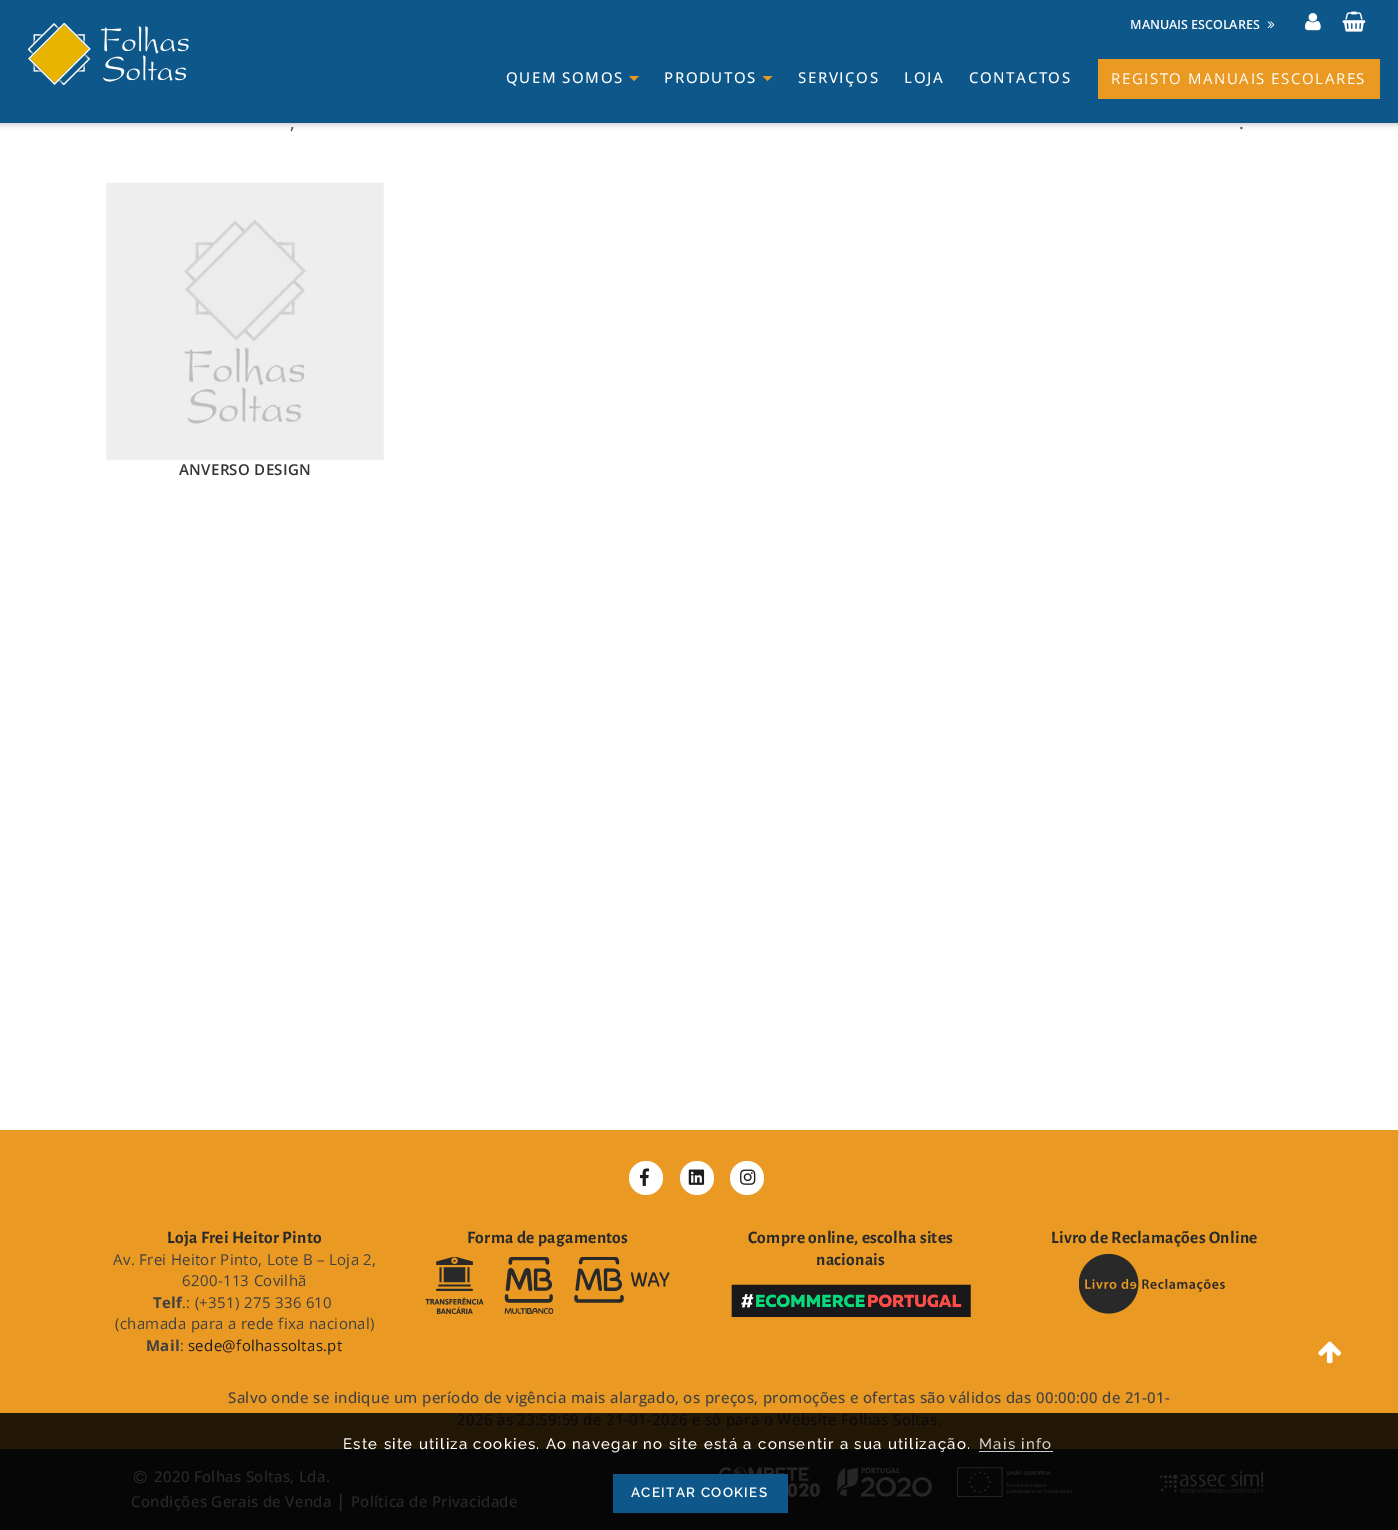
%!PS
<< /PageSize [1398 1530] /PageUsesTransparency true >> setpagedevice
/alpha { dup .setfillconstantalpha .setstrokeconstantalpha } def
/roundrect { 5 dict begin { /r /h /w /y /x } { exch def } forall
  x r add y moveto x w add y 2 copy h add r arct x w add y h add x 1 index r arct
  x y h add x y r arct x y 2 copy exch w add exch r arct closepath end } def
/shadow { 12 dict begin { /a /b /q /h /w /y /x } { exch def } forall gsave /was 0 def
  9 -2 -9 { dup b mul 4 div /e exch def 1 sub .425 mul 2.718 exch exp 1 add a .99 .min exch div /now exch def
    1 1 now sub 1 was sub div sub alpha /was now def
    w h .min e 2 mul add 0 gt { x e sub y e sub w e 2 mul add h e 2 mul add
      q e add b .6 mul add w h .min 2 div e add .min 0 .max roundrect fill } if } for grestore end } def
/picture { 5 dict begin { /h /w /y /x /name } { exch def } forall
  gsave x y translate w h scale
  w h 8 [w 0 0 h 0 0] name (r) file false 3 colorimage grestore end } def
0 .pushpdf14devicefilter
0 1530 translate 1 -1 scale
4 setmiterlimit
1 setgray
0 0 1398 1530 rectfill
0 setgray
0 3 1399 122 0 3 0.2 shadow
0.051 0.341 0.541 setrgbcolor
0 0 1398 123 rectfill
/OpenSans-SemiBold [12.5 0 0 -12.5 0 0] selectfont
1 setgray
1130 29 moveto (MANUAIS ESCOLARES) show
(img1.rgb) 1267 21 8 8 picture
(img2.rgb) 1305 13 16 18 picture
(img3.rgb) 1342 11 24 21 picture
(img4.rgb) 28 23 161 62 picture
/OpenSans-Medium [15 0 0 -15 0 0] selectfont
506 83 moveto 1.55 0 (QUEM SOMOS) ashow
0.918 0.6 0.137 setrgbcolor
newpath 629 76 moveto 639 76 lineto 634 81 lineto closepath fill
1 setgray
664 83 moveto 1.55 0 (PRODUTOS) ashow
0.918 0.6 0.137 setrgbcolor
newpath 762.5 76 moveto 772.5 76 lineto 767.5 81 lineto closepath fill
1 setgray
798 83 moveto 1.55 0 (SERVIÇOS) ashow
904 83 moveto 1.55 0 (LOJA) ashow
969 83 moveto 1.55 0 (CONTACTOS) ashow
0.918 0.6 0.137 setrgbcolor
1098 59 282 40 rectfill
/OpenSans-Regular [15 0 0 -15 0 0] selectfont
1 setgray
1111 84 moveto 1.55 0 (REGISTO MANUAIS ESCOLARES) ashow
/OpenSans-Medium [17.5 0 0 -17.5 0 0] selectfont
0.333 setgray
290 129 moveto 0.31 0 (,) ashow
1239 129 moveto 0.31 0 (.) ashow
(img5.rgb) 106 182 278 279 picture
/OpenSans-SemiBold [15 0 0 -15 0 0] selectfont
0.2 setgray
179 475 moveto 0.31 0 (ANVERSO DESIGN) ashow
0.918 0.6 0.137 setrgbcolor
0 1130 1398 283 rectfill
(img6.rgb) 1318 1341 24 23 picture
0.137 0.09 0.02 setrgbcolor
0 1413 1398 36 rectfill
1 setgray
newpath 646 1178 17 0 360 arc closepath fill
(img7.rgb) 640 1168 10 18 picture
newpath 697 1178 17 0 360 arc closepath fill
(img8.rgb) 688 1169 17 16 picture
newpath 747 1178 17 0 360 arc closepath fill
(img9.rgb) 740 1169 16 16 picture
/AlegreyaSans-Bold [17.5 0 0 -17.5 0 0] selectfont
0.161 setgray
167 1243 moveto 0.31 0 (Loja Frei Heitor Pinto) ashow
/OpenSans-Regular [15 0 0 -15 0 0] selectfont
0.251 setgray
113 1265 moveto 0.31 0 (Av. Frei Heitor Pinto, Lote B – Loja 2,) ashow
182 1286 moveto 0.31 0 (6200-113 Covilhã) ashow
/OpenSans-Bold [15 0 0 -15 0 0] selectfont
153 1308 moveto 0.31 0 (Telf) ashow
/OpenSans-Regular [15 0 0 -15 0 0] selectfont
182 1308 moveto 0.31 0 (.: \(+351\) 275 336 610) ashow
115 1329 moveto 0.31 0 (\(chamada para a rede fixa nacional\)) ashow
/OpenSans-Bold [15 0 0 -15 0 0] selectfont
146 1351 moveto 0.31 0 (Mail) ashow
/OpenSans-Regular [15 0 0 -15 0 0] selectfont
180 1351 moveto 0.31 0 (:) ashow
0.114 setgray
188 1351 moveto 0.31 0 (sede@folhassoltas.pt) ashow
/AlegreyaSans-Bold [17.5 0 0 -17.5 0 0] selectfont
0.161 setgray
467 1243 moveto 0.31 0 (Forma de pagamentos) ashow
(img10.rgb) 425 1257 245 57 picture
748 1243 moveto 0.31 0 (Compre online, escolha sites) ashow
816 1265 moveto 0.31 0 (nacionais) ashow
(img11.rgb) 731 1284 240 34 picture
1051 1243 moveto 0.31 0 (Livro de Reclamações Online) ashow
(img12.rgb) 1079 1254 146 60 picture
/OpenSans-Medium [15 0 0 -15 0 0] selectfont
0.251 setgray
228 1403 moveto 0.31 0 (Salvo onde se indique um período de vigência mais alargado, os preços, promoções e ofertas são válidos das 00:00:00 de 21-01-) ashow
0.039 setgray
457 1425 moveto 0.31 0 (2026 às 23:59:59 de 21-01-2026 e só para o Website Folhas Soltas.) ashow
0.024 setgray
0 1449 1398 81 rectfill
(img13.rgb) 133 1470 14 14 picture
0.161 setgray
154 1482 moveto 0.31 0 (2020 Folhas Soltas, Lda.) ashow
131 1507 moveto 0.31 0 (Condições Gerais de Venda) ashow
/OpenSans-Medium [17.5 0 0 -17.5 0 0] selectfont
336 1507 moveto 0.31 0 (|) ashow
/OpenSans-Medium [15 0 0 -15 0 0] selectfont
351 1507 moveto 0.31 0 (Política de Privacidade) ashow
(img14.rgb) 719 1467 353 30 picture
(img15.rgb) 1160 1471 104 23 picture
/Raleway-Medium [15 0 0 -15 0 0] selectfont
1 setgray
343 1449 moveto 1.25 0 (Este site utiliza cookies. Ao navegar no site está a consentir a sua utilização.) ashow
0.827 0.82 0.804 setrgbcolor
979 1449 moveto 1.25 0 (Mais info) ashow
0.804 setgray
979 1451 74 1 rectfill
0.051 0.341 0.541 setrgbcolor
613 1474 175 39 rectfill
/Raleway-SemiBold [13.5 0 0 -13.5 0 0] selectfont
1 setgray
631 1497 moveto 1.25 0 (ACEITAR COOKIES) ashow
.poppdf14devicefilter showpage
